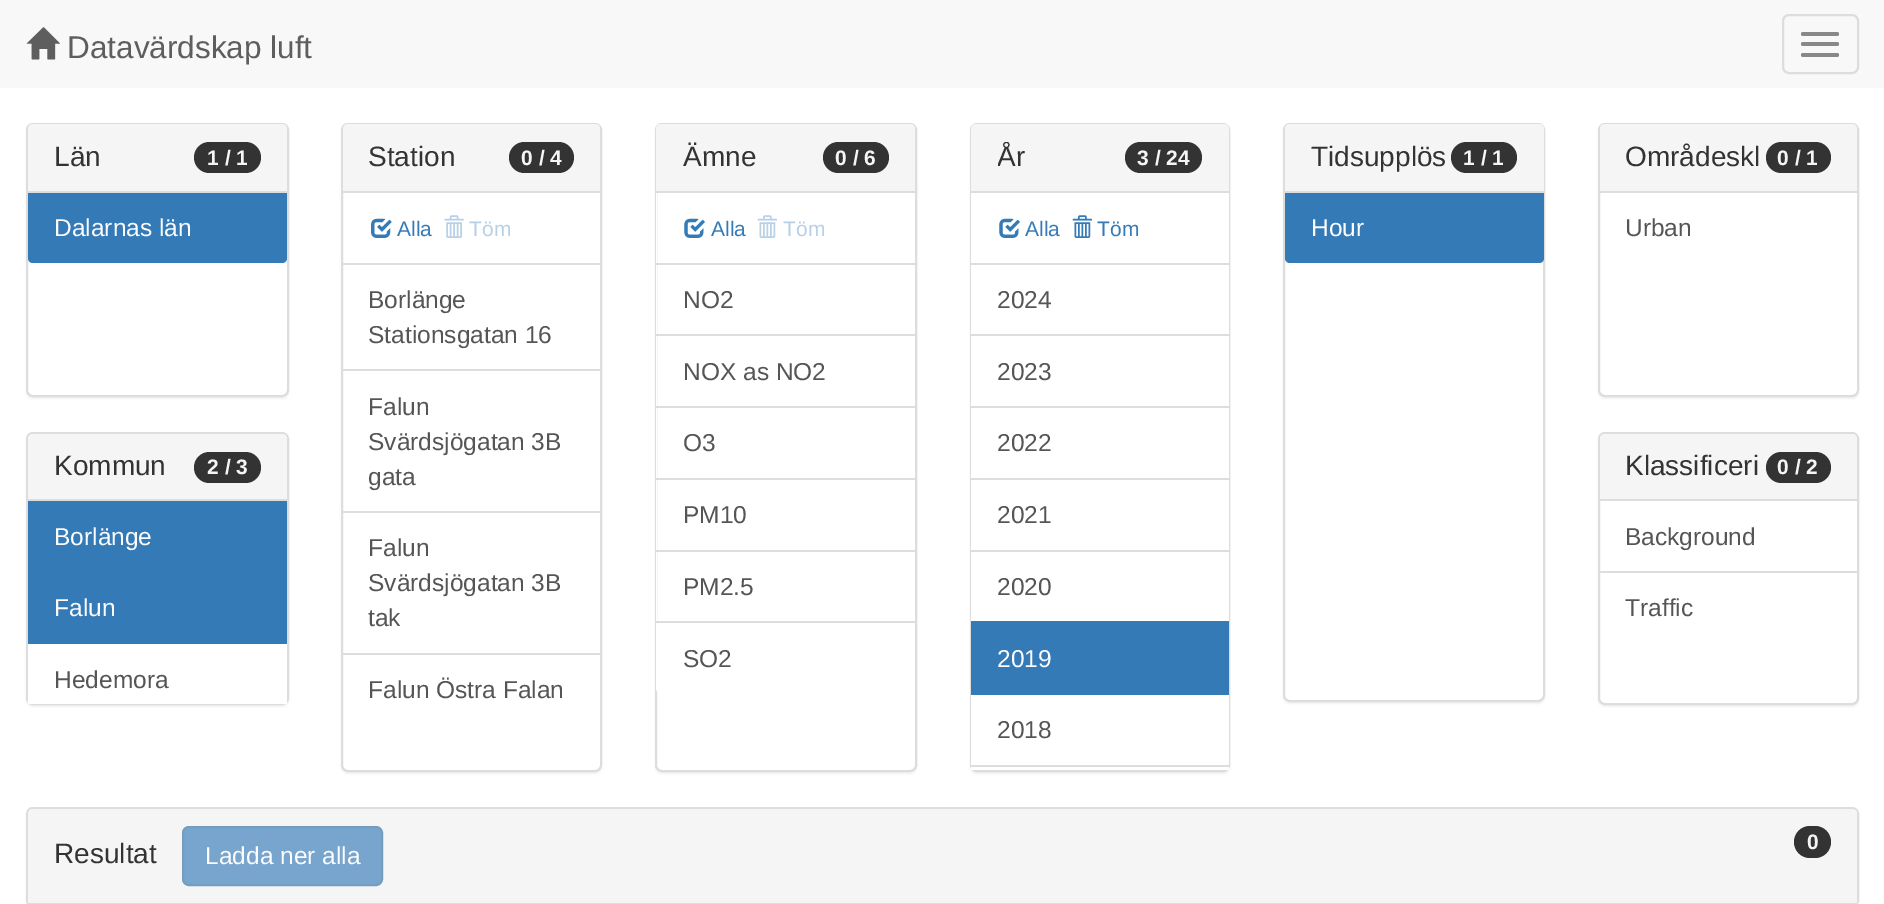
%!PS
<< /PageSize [1884 904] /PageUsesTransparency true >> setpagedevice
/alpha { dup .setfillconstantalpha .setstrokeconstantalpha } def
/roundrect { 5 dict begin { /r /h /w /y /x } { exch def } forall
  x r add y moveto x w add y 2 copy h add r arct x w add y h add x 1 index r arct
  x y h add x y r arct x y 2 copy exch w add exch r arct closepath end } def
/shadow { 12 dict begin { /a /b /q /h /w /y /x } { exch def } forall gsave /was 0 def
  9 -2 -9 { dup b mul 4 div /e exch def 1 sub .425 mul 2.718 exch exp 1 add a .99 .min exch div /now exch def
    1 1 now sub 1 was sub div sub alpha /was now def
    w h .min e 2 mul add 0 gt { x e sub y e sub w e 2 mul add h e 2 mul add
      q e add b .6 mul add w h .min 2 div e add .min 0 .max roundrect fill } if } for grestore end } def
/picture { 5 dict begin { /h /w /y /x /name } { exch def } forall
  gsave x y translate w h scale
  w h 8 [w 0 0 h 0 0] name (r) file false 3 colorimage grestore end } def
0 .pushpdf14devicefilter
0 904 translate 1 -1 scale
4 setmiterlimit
1 setgray
0 0 1884 904 rectfill
0.973 setgray
0 0 1884 88 rectfill
(img1.rgb) 26 27 34 33 picture
/LiberationSans-Regular [31.5 0 0 -31.5 0 0] selectfont
0.369 setgray
67 58 moveto (Datavärdskap luft) show
0.867 setgray
2 setlinewidth
1783 15 75 58 6 roundrect stroke
0.533 setgray
1801 32 38 4 2 roundrect fill
1801 42 38 4 2 roundrect fill
1801 53 38 4 2 roundrect fill
0 setgray
26 124 263 275 7 1 0.05 shadow
1 setgray
27 124 261 272 6 roundrect gsave fill grestore
0.867 setgray
stroke
0.961 setgray
newpath 33 124 moveto 282 124 lineto 285 124 287 126 287 129 curveto 287 193 lineto 28 193 lineto 28 129 lineto 28 126 30 124 33 124 curveto closepath fill
0.867 setgray
28 191 259 2 rectfill
/LiberationSans-Regular [28 0 0 -28 0 0] selectfont
0.2 setgray
54 166 moveto (Län) show
194 142 67 31 15.5 roundrect fill
/LiberationSans-Bold [21 0 0 -21 0 0] selectfont
0.961 setgray
207 165 moveto (1 / 1) show
0.2 0.478 0.718 setrgbcolor
newpath 28 193 moveto 287 193 lineto 287 258 lineto 287 261 285 263 282 263 curveto 33 263 lineto 30 263 28 261 28 258 curveto closepath fill
/LiberationSans-Regular [24.5 0 0 -24.5 0 0] selectfont
0.988 setgray
54 236 moveto (Dalarnas län) show
0 setgray
26 434 263 273 7 1 0.05 shadow
0.867 setgray
27 433 261 271 6 roundrect stroke
0.961 setgray
newpath 33 434 moveto 282 434 lineto 285 434 287 436 287 439 curveto 287 501 lineto 28 501 lineto 28 439 lineto 28 436 30 434 33 434 curveto closepath fill
0.867 setgray
28 499 259 2 rectfill
/LiberationSans-Regular [28 0 0 -28 0 0] selectfont
0.2 setgray
54 475 moveto (Kommun) show
194 452 67 31 15.5 roundrect fill
/LiberationSans-Bold [21 0 0 -21 0 0] selectfont
0.961 setgray
207 474 moveto (2 / 3) show
0.2 0.478 0.718 setrgbcolor
28 501 259 143 rectfill
/LiberationSans-Regular [24.5 0 0 -24.5 0 0] selectfont
0.988 setgray
54 545 moveto (Borlänge) show
54 616 moveto (Falun) show
1 setgray
28 644 259 60 rectfill
0.333 setgray
54 688 moveto (Hedemora) show
0 setgray
341 124 261 650 7 1 0.05 shadow
1 setgray
342 124 259 647 6 roundrect gsave fill grestore
0.867 setgray
stroke
0.961 setgray
newpath 348 124 moveto 595 124 lineto 598 124 600 126 600 129 curveto 600 193 lineto 343 193 lineto 343 129 lineto 343 126 345 124 348 124 curveto closepath fill
0.867 setgray
343 191 257 2 rectfill
/LiberationSans-Regular [28 0 0 -28 0 0] selectfont
0.2 setgray
368 166 moveto (Station) show
509 142 65 31 15.5 roundrect fill
/LiberationSans-Bold [21 0 0 -21 0 0] selectfont
0.961 setgray
521 165 moveto (0 / 4) show
(img2.rgb) 371 218 21 20 picture
/LiberationSans-Regular [21 0 0 -21 0 0] selectfont
0.2 0.478 0.718 setrgbcolor
397 236 moveto (Alla) show
(img3.rgb) 444 215 20 23 picture
0.722 0.816 0.902 setrgbcolor
469 236 moveto (Töm) show
0.867 setgray
343 263 257 2 rectfill
343 369 257 2 rectfill
/LiberationSans-Regular [24.5 0 0 -24.5 0 0] selectfont
0.333 setgray
368 308 moveto (Borlänge) show
368 343 moveto (Stationsgatan 16) show
0.867 setgray
343 511 257 2 rectfill
0.333 setgray
368 415 moveto (Falun) show
368 450 moveto (Svärdsjögatan 3B) show
368 485 moveto (gata) show
368 556 moveto (Falun) show
368 591 moveto (Svärdsjögatan 3B) show
368 626 moveto (tak) show
0.867 setgray
343 653 257 2 rectfill
0.333 setgray
368 698 moveto (Falun Östra Falan) show
0 setgray
655 124 262 650 7 1 0.05 shadow
1 setgray
656 124 260 647 6 roundrect gsave fill grestore
0.867 setgray
stroke
0.961 setgray
newpath 661 124 moveto 910 124 lineto 913 124 915 126 915 129 curveto 915 193 lineto 656 193 lineto 656 129 lineto 656 126 658 124 661 124 curveto closepath fill
0.867 setgray
656 191 259 2 rectfill
/LiberationSans-Regular [28 0 0 -28 0 0] selectfont
0.2 setgray
683 166 moveto (Ämne) show
823 142 66 31 15.5 roundrect fill
/LiberationSans-Bold [21 0 0 -21 0 0] selectfont
0.961 setgray
835 165 moveto (0 / 6) show
1 setgray
656 193 1 70 rectfill
(img4.rgb) 684 218 21 20 picture
/LiberationSans-Regular [21 0 0 -21 0 0] selectfont
0.2 0.478 0.718 setrgbcolor
711 236 moveto (Alla) show
(img5.rgb) 757 215 20 23 picture
0.722 0.816 0.902 setrgbcolor
783 236 moveto (Töm) show
1 setgray
656 265 1 69 rectfill
0.867 setgray
656 263 259 2 rectfill
656 334 259 2 rectfill
/LiberationSans-Regular [24.5 0 0 -24.5 0 0] selectfont
0.333 setgray
683 308 moveto (NO2) show
1 setgray
656 336 1 70 rectfill
0.867 setgray
656 406 259 2 rectfill
0.333 setgray
683 380 moveto (NOX as NO2) show
1 setgray
656 408 1 70 rectfill
0.867 setgray
656 478 259 2 rectfill
0.333 setgray
683 451 moveto (O3) show
1 setgray
656 480 1 70 rectfill
0.333 setgray
683 523 moveto (PM10) show
1 setgray
656 552 1 69 rectfill
0.867 setgray
656 550 259 2 rectfill
0.333 setgray
683 595 moveto (PM2.5) show
1 setgray
newpath 656 621 moveto 915 621 lineto 915 688 lineto 915 691 913 693 910 693 curveto 661 693 lineto 658 693 656 691 656 688 curveto closepath fill
0.867 setgray
656 621 259 2 rectfill
0.333 setgray
683 667 moveto (SO2) show
0 setgray
970 124 260 650 7 1 0.05 shadow
0.867 setgray
971 124 258 647 6 roundrect stroke
0.961 setgray
newpath 976 124 moveto 1224 124 lineto 1227 124 1229 126 1229 129 curveto 1229 193 lineto 971 193 lineto 971 129 lineto 971 126 973 124 976 124 curveto closepath fill
0.867 setgray
971 191 258 2 rectfill
gsave
998 142 127 31 rectclip
/LiberationSans-Regular [28 0 0 -28 0 0] selectfont
0.2 setgray
997 166 moveto (År) show
grestore
0.2 setgray
1125 142 77 31 15.5 roundrect fill
/LiberationSans-Bold [21 0 0 -21 0 0] selectfont
0.961 setgray
1137 165 moveto (3 / 24) show
1 setgray
971 193 258 70 rectfill
(img4.rgb) 999 218 21 20 picture
/LiberationSans-Regular [21 0 0 -21 0 0] selectfont
0.2 0.478 0.718 setrgbcolor
1025 236 moveto (Alla) show
(img6.rgb) 1072 215 20 23 picture
1097 236 moveto (Töm) show
1 setgray
971 265 258 69 rectfill
0.867 setgray
971 263 258 2 rectfill
971 334 258 2 rectfill
/LiberationSans-Regular [24.5 0 0 -24.5 0 0] selectfont
0.333 setgray
997 308 moveto (2024) show
1 setgray
971 336 258 70 rectfill
0.867 setgray
971 406 258 2 rectfill
0.333 setgray
997 380 moveto (2023) show
1 setgray
971 408 258 70 rectfill
0.867 setgray
971 478 258 2 rectfill
0.333 setgray
997 451 moveto (2022) show
1 setgray
971 480 258 70 rectfill
0.333 setgray
997 523 moveto (2021) show
1 setgray
971 552 258 69 rectfill
0.867 setgray
971 550 258 2 rectfill
0.333 setgray
997 595 moveto (2020) show
0.2 0.478 0.718 setrgbcolor
971 621 258 74 rectfill
0.988 setgray
997 667 moveto (2019) show
1 setgray
971 695 258 70 rectfill
0.867 setgray
971 765 258 2 rectfill
0.333 setgray
997 738 moveto (2018) show
1 setgray
971 767 258 3 rectfill
0 setgray
1283 124 262 580 7 1 0.05 shadow
1 setgray
1284 124 260 577 6 roundrect gsave fill grestore
0.867 setgray
stroke
0.961 setgray
newpath 1290 124 moveto 1539 124 lineto 1542 124 1544 126 1544 129 curveto 1544 193 lineto 1285 193 lineto 1285 129 lineto 1285 126 1287 124 1290 124 curveto closepath fill
0.867 setgray
1285 191 259 2 rectfill
/LiberationSans-Regular [28 0 0 -28 0 0] selectfont
0.2 setgray
1311 166 moveto (Tidsupplös) show
1451 142 66 31 15.5 roundrect fill
/LiberationSans-Bold [21 0 0 -21 0 0] selectfont
0.961 setgray
1463 165 moveto (1 / 1) show
0.2 0.478 0.718 setrgbcolor
newpath 1285 193 moveto 1544 193 lineto 1544 258 lineto 1544 261 1542 263 1539 263 curveto 1290 263 lineto 1287 263 1285 261 1285 258 curveto closepath fill
/LiberationSans-Regular [24.5 0 0 -24.5 0 0] selectfont
0.988 setgray
1311 236 moveto (Hour) show
0 setgray
1598 124 261 275 7 1 0.05 shadow
1 setgray
1599 124 259 272 6 roundrect gsave fill grestore
0.867 setgray
stroke
0.961 setgray
newpath 1605 124 moveto 1852 124 lineto 1855 124 1857 126 1857 129 curveto 1857 193 lineto 1600 193 lineto 1600 129 lineto 1600 126 1602 124 1605 124 curveto closepath fill
0.867 setgray
1600 191 257 2 rectfill
/LiberationSans-Regular [28 0 0 -28 0 0] selectfont
0.2 setgray
1625 166 moveto (Områdeskl) show
1766 142 65 31 15.5 roundrect fill
/LiberationSans-Bold [21 0 0 -21 0 0] selectfont
0.961 setgray
1777 165 moveto (0 / 1) show
/LiberationSans-Regular [24.5 0 0 -24.5 0 0] selectfont
0.333 setgray
1625 236 moveto (Urban) show
0 setgray
1598 434 261 273 7 1 0.05 shadow
1 setgray
1599 433 259 271 6 roundrect gsave fill grestore
0.867 setgray
stroke
0.961 setgray
newpath 1605 434 moveto 1852 434 lineto 1855 434 1857 436 1857 439 curveto 1857 501 lineto 1600 501 lineto 1600 439 lineto 1600 436 1602 434 1605 434 curveto closepath fill
0.867 setgray
1600 499 257 2 rectfill
/LiberationSans-Regular [28 0 0 -28 0 0] selectfont
0.2 setgray
1625 475 moveto (Klassificeri) show
1766 452 65 31 15.5 roundrect fill
/LiberationSans-Bold [21 0 0 -21 0 0] selectfont
0.961 setgray
1777 474 moveto (0 / 2) show
/LiberationSans-Regular [24.5 0 0 -24.5 0 0] selectfont
0.333 setgray
1625 545 moveto (Background) show
0.867 setgray
1600 571 257 2 rectfill
0.333 setgray
1625 616 moveto (Traffic) show
0 setgray
26 809 1833 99 7 1 0.05 shadow
0.867 setgray
27 808 1831 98 6 roundrect stroke
0.961 setgray
newpath 33 809 moveto 1852 809 lineto 1855 809 1857 811 1857 814 curveto 1857 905 lineto 28 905 lineto 28 814 lineto 28 811 30 809 33 809 curveto closepath fill
0.867 setgray
28 903 1829 1 rectfill
/LiberationSans-Regular [28 0 0 -28 0 0] selectfont
0.2 setgray
54 863 moveto (Resultat) show
0.467 0.647 0.804 setrgbcolor
183 827 199 58 6 roundrect gsave fill grestore
0.455 0.616 0.753 setrgbcolor
stroke
/LiberationSans-Regular [24.5 0 0 -24.5 0 0] selectfont
0.988 setgray
205 864 moveto (Ladda ner alla) show
0.2 setgray
1794 826 37 32 16 roundrect fill
/LiberationSans-Bold [21 0 0 -21 0 0] selectfont
0.961 setgray
1807 849 moveto (0) show
.poppdf14devicefilter showpage
